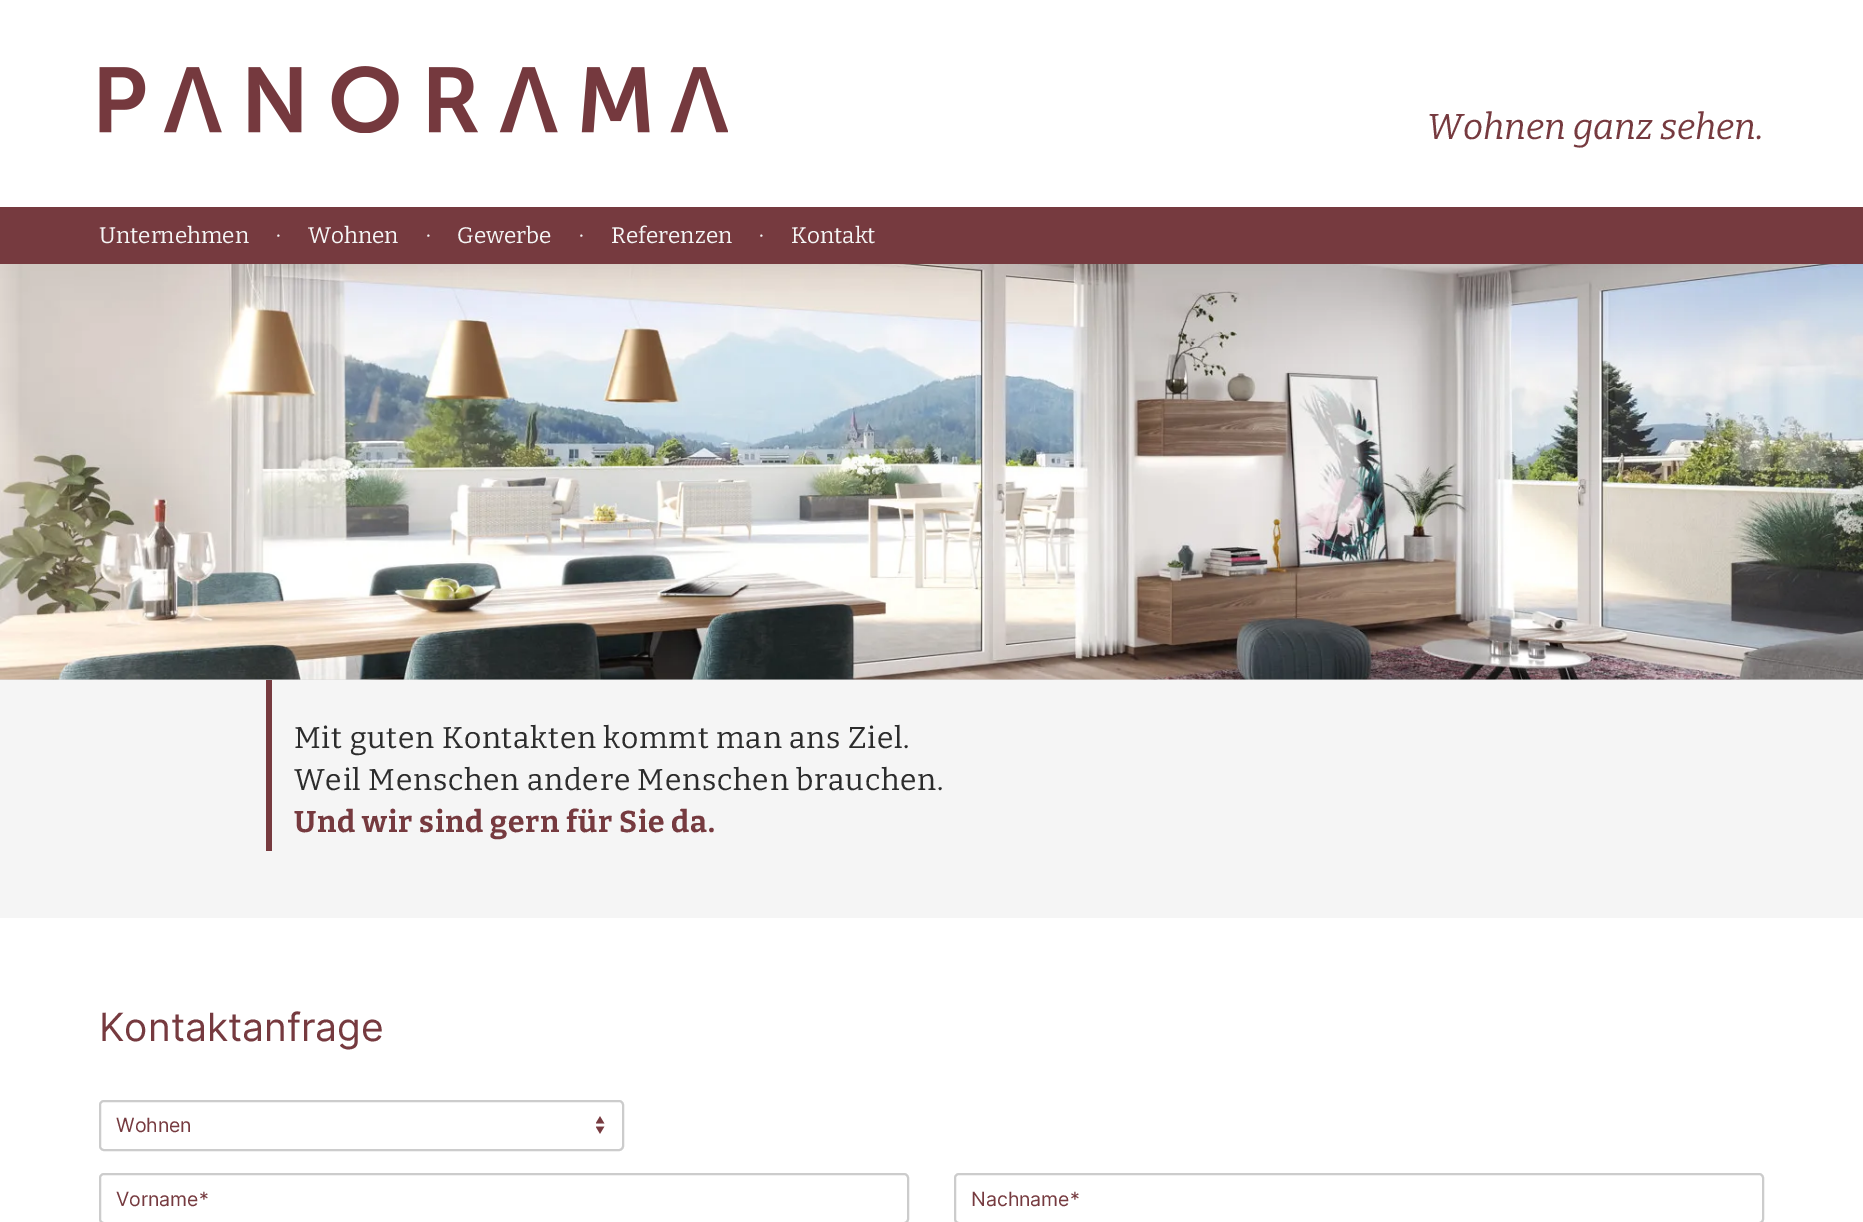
%!PS
<< /PageSize [1863 1222] >> setpagedevice
/roundrect { 5 dict begin { /r /h /w /y /x } { exch def } forall
  x r add y moveto x w add y 2 copy h add r arct x w add y h add x 1 index r arct
  x y h add x y r arct x y 2 copy exch w add exch r arct closepath end } def
/picture { 5 dict begin { /h /w /y /x /name } { exch def } forall
  gsave x y translate w h scale
  w h 8 [w 0 0 h 0 0] name (r) file false 3 colorimage grestore end } def
0 1222 translate 1 -1 scale
4 setmiterlimit
0.867 setgray
0 0 1863 1222 rectfill
1 setgray
0 0 1863 207 rectfill
(img1.rgb) 99 66 629 67 picture
/Bitter-ThinItalic [36 0 0 -36 0 0] selectfont
0.463 0.227 0.247 setrgbcolor
1427 139 moveto (Wohnen ganz sehen.) show
0 207 1863 57 rectfill
/Bitter-Thin [22.5 0 0 -22.5 0 0] selectfont
0.961 setgray
99 243 moveto (Unternehmen) show
276 243 moveto (·) show
308 243 moveto (Wohnen) show
426 243 moveto (·) show
457 243 moveto (Gewerbe) show
579 243 moveto (·) show
611 243 moveto (Referenzen) show
759 243 moveto (·) show
791 243 moveto (Kontakt) show
(img2.rgb) 0 264 1863 416 picture
0 680 1863 238 rectfill
0.463 0.227 0.247 setrgbcolor
266 680 6 171 rectfill
/Bitter-Thin [30 0 0 -30 0 0] selectfont
0.173 setgray
294 748 moveto 0.75 0 (Mit guten Kontakten kommt man ans Ziel.) ashow
294 790 moveto 0.75 0 (Weil Menschen andere Menschen brauchen.) ashow
/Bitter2-Thin [30 0 0 -30 0 0] selectfont
0.463 0.227 0.247 setrgbcolor
294 832 moveto 0.75 0 (Und wir sind gern für Sie da.) ashow
1 setgray
0 918 1863 304 rectfill
/Inter-Regular [39 0 0 -39 0 0] selectfont
0.463 0.227 0.247 setrgbcolor
99 1041 moveto (Kontaktanfrage) show
(img3.rgb) 596 1116 9 18 picture
0.8 setgray
2 setlinewidth
100 1101 523 49 4 roundrect stroke
/Inter-Regular [19.5 0 0 -19.5 0 0] selectfont
0.463 0.227 0.247 setrgbcolor
116 1132 moveto (Wohnen) show
0.8 setgray
100 1174 808 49 4 roundrect stroke
0.463 0.227 0.247 setrgbcolor
116 1206 moveto (Vorname*) show
0.8 setgray
955 1174 808 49 4 roundrect stroke
0.463 0.227 0.247 setrgbcolor
971 1206 moveto (Nachname*) show
showpage
